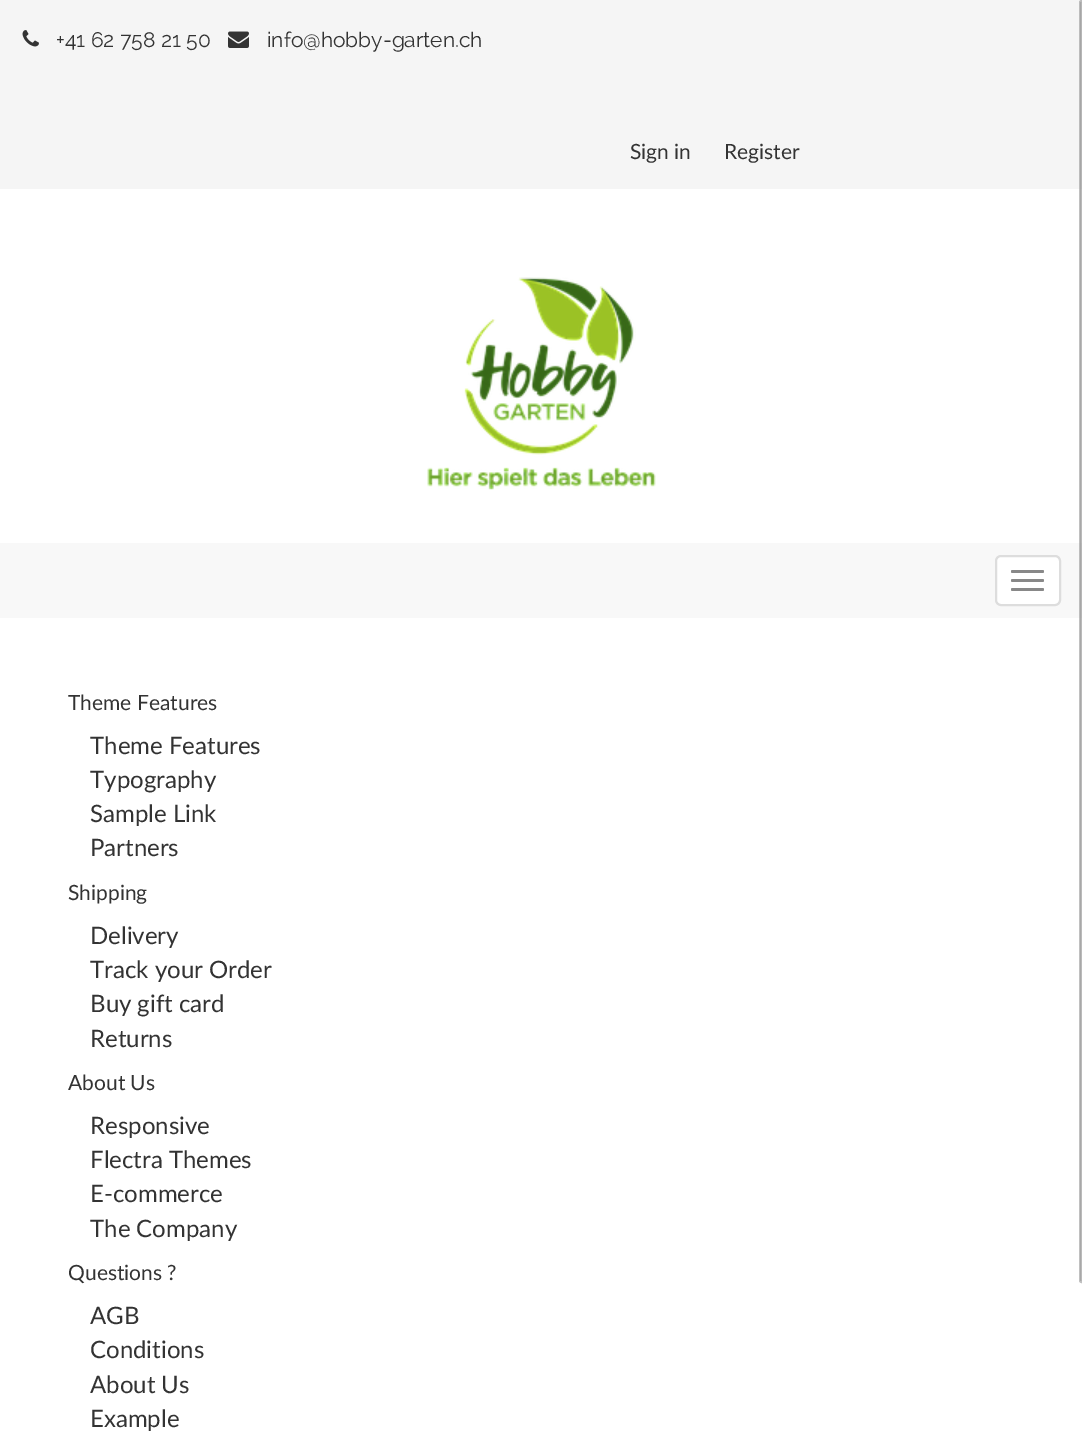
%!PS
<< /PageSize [1082 1436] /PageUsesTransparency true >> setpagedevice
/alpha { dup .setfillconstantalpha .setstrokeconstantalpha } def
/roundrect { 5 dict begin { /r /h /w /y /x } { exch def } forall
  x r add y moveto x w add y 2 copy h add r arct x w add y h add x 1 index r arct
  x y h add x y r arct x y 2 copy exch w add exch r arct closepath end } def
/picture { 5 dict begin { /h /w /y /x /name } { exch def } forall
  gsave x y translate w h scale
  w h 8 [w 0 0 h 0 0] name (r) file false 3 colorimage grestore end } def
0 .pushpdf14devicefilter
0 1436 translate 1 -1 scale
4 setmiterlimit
1 setgray
0 0 1082 1436 rectfill
0.961 setgray
0 0 1082 189 rectfill
(img1.rgb) 22 30 17 17 picture
/Raleway-Regular [21 0 0 -21 0 0] selectfont
0.2 setgray
56 47 moveto (+41 62 758 21 50) show
(img2.rgb) 228 31 21 17 picture
267 47 moveto (info@hobby-garten.ch) show
/Lato-Regular [21 0 0 -21 0 0] selectfont
630 159 moveto (Sign in) show
724 159 moveto (Register) show
(img3.rgb) 427 277 229 213 picture
0.973 setgray
0 543 1082 75 rectfill
1 setgray
996 556 64 49 5 roundrect gsave fill grestore
0.867 setgray
2 setlinewidth
stroke
0.533 setgray
1011 570 33 3 1.5 roundrect fill
1011 579 33 3 1.5 roundrect fill
1011 588 33 3 1.5 roundrect fill
0.2 setgray
68 710 moveto (Theme Features) show
/Lato-Regular [24 0 0 -24 0 0] selectfont
90 754 moveto (Theme Features) show
90 788 moveto (Typography) show
90 822 moveto (Sample Link) show
90 856 moveto (Partners) show
/Lato-Regular [21 0 0 -21 0 0] selectfont
68 900 moveto (Shipping) show
/Lato-Regular [24 0 0 -24 0 0] selectfont
90 944 moveto (Delivery) show
90 978 moveto (Track your Order) show
90 1012 moveto (Buy gift card) show
90 1047 moveto (Returns) show
/Lato-Regular [21 0 0 -21 0 0] selectfont
68 1090 moveto (About Us) show
/Lato-Regular [24 0 0 -24 0 0] selectfont
90 1134 moveto (Responsive) show
90 1168 moveto (Flectra Themes) show
90 1202 moveto (E-commerce) show
90 1237 moveto (The Company) show
/Lato-Regular [21 0 0 -21 0 0] selectfont
68 1280 moveto (Questions ?) show
/Lato-Regular [24 0 0 -24 0 0] selectfont
90 1324 moveto (AGB) show
90 1358 moveto (Conditions) show
90 1393 moveto (About Us) show
90 1427 moveto (Example) show
0.62 alpha
0.6 setgray
1080 2 2 1279 1 roundrect fill
1080 1 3 1281 1.5 roundrect stroke
.poppdf14devicefilter showpage
